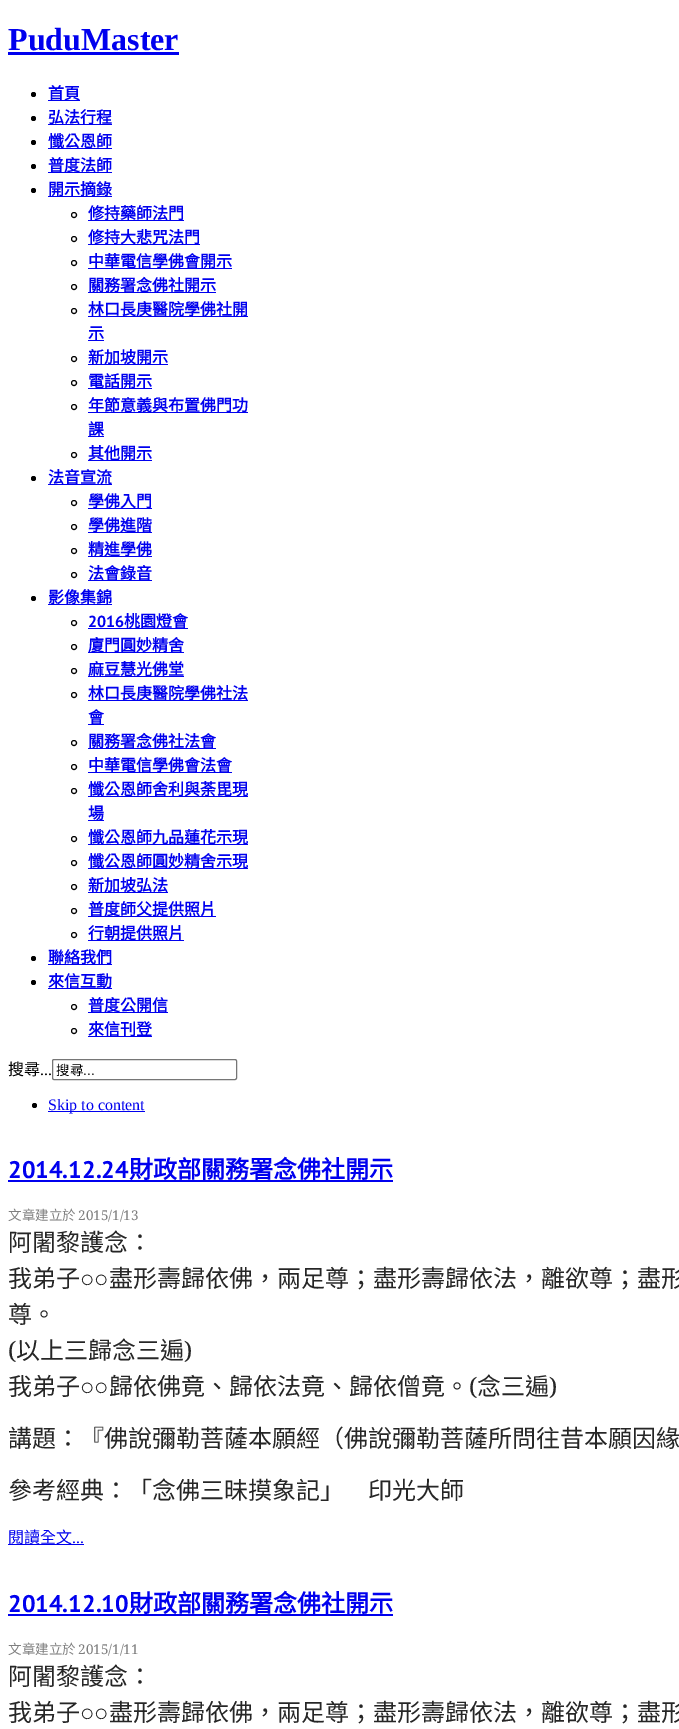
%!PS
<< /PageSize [679 1729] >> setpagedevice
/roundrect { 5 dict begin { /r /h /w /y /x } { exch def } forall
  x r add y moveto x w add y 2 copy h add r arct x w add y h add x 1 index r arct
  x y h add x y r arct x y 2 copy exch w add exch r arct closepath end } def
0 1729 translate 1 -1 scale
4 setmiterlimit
1 setgray
0 0 679 1729 rectfill
/LiberationSerif-Bold [32 0 0 -32 0 0] selectfont
0 0 0.933 setrgbcolor
8 50 moveto (PuduMaster) show
8 52 171 3 rectfill
0 setgray
newpath 33.5 94.5 2.5 0 360 arc closepath fill
0 0 0.933 setrgbcolor
48 100 32 1 rectfill
/NotoSansCJKTC-Bold [16 0 0 -16 0 0] selectfont
48 99 moveto (首頁) show
0 setgray
newpath 33.5 118.5 2.5 0 360 arc closepath fill
0 0 0.933 setrgbcolor
48 124 64 1 rectfill
48 123 moveto (弘法行程) show
0 setgray
newpath 33.5 142.5 2.5 0 360 arc closepath fill
0 0 0.933 setrgbcolor
48 148 64 1 rectfill
48 147 moveto (懺公恩師) show
0 setgray
newpath 33.5 166.5 2.5 0 360 arc closepath fill
0 0 0.933 setrgbcolor
48 172 64 1 rectfill
48 171 moveto (普度法師) show
0 setgray
newpath 33.5 190.5 2.5 0 360 arc closepath fill
0 0 0.933 setrgbcolor
48 196 64 1 rectfill
48 195 moveto (開示摘錄) show
0 setgray
newpath 74 215 2.5 0 360 arc closepath stroke
0 0 0.933 setrgbcolor
88 220 96 1 rectfill
88 219 moveto (修持藥師法門) show
0 setgray
newpath 74 239 2.5 0 360 arc closepath stroke
0 0 0.933 setrgbcolor
88 244 112 1 rectfill
88 243 moveto (修持大悲咒法門) show
0 setgray
newpath 74 263 2.5 0 360 arc closepath stroke
0 0 0.933 setrgbcolor
88 268 144 1 rectfill
88 267 moveto (中華電信學佛會開示) show
0 setgray
newpath 74 287 2.5 0 360 arc closepath stroke
0 0 0.933 setrgbcolor
88 292 128 1 rectfill
88 291 moveto (關務署念佛社開示) show
0 setgray
newpath 74 311 2.5 0 360 arc closepath stroke
0 0 0.933 setrgbcolor
88 316 160 1 rectfill
88 315 moveto (林口長庚醫院學佛社開) show
88 340 16 1 rectfill
88 339 moveto (示) show
0 setgray
newpath 74 359 2.5 0 360 arc closepath stroke
0 0 0.933 setrgbcolor
88 364 80 1 rectfill
88 363 moveto (新加坡開示) show
0 setgray
newpath 74 383 2.5 0 360 arc closepath stroke
0 0 0.933 setrgbcolor
88 388 64 1 rectfill
88 387 moveto (電話開示) show
0 setgray
newpath 74 407 2.5 0 360 arc closepath stroke
0 0 0.933 setrgbcolor
88 412 160 1 rectfill
88 411 moveto (年節意義與布置佛門功) show
88 436 16 1 rectfill
88 435 moveto (課) show
0 setgray
newpath 74 455 2.5 0 360 arc closepath stroke
0 0 0.933 setrgbcolor
88 460 64 1 rectfill
88 459 moveto (其他開示) show
0 setgray
newpath 33.5 478.5 2.5 0 360 arc closepath fill
0 0 0.933 setrgbcolor
48 484 64 1 rectfill
48 483 moveto (法音宣流) show
0 setgray
newpath 74 503 2.5 0 360 arc closepath stroke
0 0 0.933 setrgbcolor
88 508 64 1 rectfill
88 507 moveto (學佛入門) show
0 setgray
newpath 74 527 2.5 0 360 arc closepath stroke
0 0 0.933 setrgbcolor
88 532 64 1 rectfill
88 531 moveto (學佛進階) show
0 setgray
newpath 74 551 2.5 0 360 arc closepath stroke
0 0 0.933 setrgbcolor
88 556 64 1 rectfill
88 555 moveto (精進學佛) show
0 setgray
newpath 74 575 2.5 0 360 arc closepath stroke
0 0 0.933 setrgbcolor
88 580 64 1 rectfill
88 579 moveto (法會錄音) show
0 setgray
newpath 33.5 598.5 2.5 0 360 arc closepath fill
0 0 0.933 setrgbcolor
48 604 64 1 rectfill
48 603 moveto (影像集錦) show
0 setgray
newpath 74 623 2.5 0 360 arc closepath stroke
/PTSans-Bold [16 0 0 -16 0 0] selectfont
0 0 0.933 setrgbcolor
88 627 moveto (2016) show
88 628 100 1 rectfill
/NotoSansCJKTC-Bold [16 0 0 -16 0 0] selectfont
124 627 moveto (桃園燈會) show
0 setgray
newpath 74 647 2.5 0 360 arc closepath stroke
0 0 0.933 setrgbcolor
88 652 96 1 rectfill
88 651 moveto (廈門圓妙精舍) show
0 setgray
newpath 74 671 2.5 0 360 arc closepath stroke
0 0 0.933 setrgbcolor
88 676 96 1 rectfill
88 675 moveto (麻豆慧光佛堂) show
0 setgray
newpath 74 695 2.5 0 360 arc closepath stroke
0 0 0.933 setrgbcolor
88 700 160 1 rectfill
88 699 moveto (林口長庚醫院學佛社法) show
88 724 16 1 rectfill
88 723 moveto (會) show
0 setgray
newpath 74 743 2.5 0 360 arc closepath stroke
0 0 0.933 setrgbcolor
88 748 128 1 rectfill
88 747 moveto (關務署念佛社法會) show
0 setgray
newpath 74 767 2.5 0 360 arc closepath stroke
0 0 0.933 setrgbcolor
88 772 144 1 rectfill
88 771 moveto (中華電信學佛會法會) show
0 setgray
newpath 74 791 2.5 0 360 arc closepath stroke
0 0 0.933 setrgbcolor
88 796 160 1 rectfill
88 795 moveto (懺公恩師舍利與荼毘現) show
88 820 16 1 rectfill
88 819 moveto (場) show
0 setgray
newpath 74 839 2.5 0 360 arc closepath stroke
0 0 0.933 setrgbcolor
88 844 160 1 rectfill
88 843 moveto (懺公恩師九品蓮花示現) show
0 setgray
newpath 74 863 2.5 0 360 arc closepath stroke
0 0 0.933 setrgbcolor
88 868 160 1 rectfill
88 867 moveto (懺公恩師圓妙精舍示現) show
0 setgray
newpath 74 887 2.5 0 360 arc closepath stroke
0 0 0.933 setrgbcolor
88 892 80 1 rectfill
88 891 moveto (新加坡弘法) show
0 setgray
newpath 74 911 2.5 0 360 arc closepath stroke
0 0 0.933 setrgbcolor
88 916 128 1 rectfill
88 915 moveto (普度師父提供照片) show
0 setgray
newpath 74 935 2.5 0 360 arc closepath stroke
0 0 0.933 setrgbcolor
88 940 96 1 rectfill
88 939 moveto (行朝提供照片) show
0 setgray
newpath 33.5 958.5 2.5 0 360 arc closepath fill
0 0 0.933 setrgbcolor
48 964 64 1 rectfill
48 963 moveto (聯絡我們) show
0 setgray
newpath 33.5 982.5 2.5 0 360 arc closepath fill
0 0 0.933 setrgbcolor
48 988 64 1 rectfill
48 987 moveto (來信互動) show
0 setgray
newpath 74 1007 2.5 0 360 arc closepath stroke
0 0 0.933 setrgbcolor
88 1012 80 1 rectfill
88 1011 moveto (普度公開信) show
0 setgray
newpath 74 1031 2.5 0 360 arc closepath stroke
0 0 0.933 setrgbcolor
88 1036 64 1 rectfill
88 1035 moveto (來信刊登) show
/NotoSansCJKTC-Regular [16 0 0 -16 0 0] selectfont
0 setgray
8 1075 moveto (搜尋) show
/LiberationSerif-Regular [16 0 0 -16 0 0] selectfont
40 1075 moveto (...) show
0.463 setgray
52.5 1059.5 184 20 1.5 roundrect stroke
/NotoSansCJKTC-Regular [13.5 0 0 -13.5 0 0] selectfont
0 setgray
56 1075 moveto (搜尋) show
/LiberationSans-Regular [13.5 0 0 -13.5 0 0] selectfont
83 1075 moveto (...) show
newpath 34.5 1105.5 2.5 0 360 arc closepath fill
0 0 0.933 setrgbcolor
48 1111 97 1 rectfill
/LiberationSerif-Regular [16 0 0 -16 0 0] selectfont
48 1110 moveto (Skip to content) show
/PTSans-Bold [24 0 0 -24 0 0] selectfont
8 1178 moveto (2014.12.24) show
8 1180 385 2 rectfill
/NotoSansCJKTC-Bold [24 0 0 -24 0 0] selectfont
129 1178 moveto (財政部關務署念佛社開示) show
/NotoSansCJKTC-Regular [13.5 0 0 -13.5 0 0] selectfont
0.498 setgray
8 1220 moveto (文章建立於) show
/NotoSerif-Regular [13.5 0 0 -13.5 0 0] selectfont
78 1220 moveto (2015/1/13) show
/NotoSansCJKTC-Regular [24 0 0 -24 0 0] selectfont
0.149 setgray
8 1251 moveto (阿闍黎護念：) show
8 1287 moveto (我弟子) show
/LiberationSerif-Regular [24 0 0 -24 0 0] selectfont
80 1287 moveto (○○) show
/NotoSansCJKTC-Regular [24 0 0 -24 0 0] selectfont
109 1287 moveto (盡形壽歸依佛，兩足尊；盡形壽歸依法，離欲尊；盡形) show
8 1323 moveto (尊。) show
/NotoSerif-Regular [24 0 0 -24 0 0] selectfont
8 1359 moveto (\() show
/NotoSansCJKTC-Regular [24 0 0 -24 0 0] selectfont
16 1359 moveto (以上三歸念三遍) show
/NotoSerif-Regular [24 0 0 -24 0 0] selectfont
184 1359 moveto (\)) show
/NotoSansCJKTC-Regular [24 0 0 -24 0 0] selectfont
8 1395 moveto (我弟子) show
/LiberationSerif-Regular [24 0 0 -24 0 0] selectfont
80 1395 moveto (○○) show
/NotoSansCJKTC-Regular [24 0 0 -24 0 0] selectfont
109 1395 moveto (歸依佛竟、歸依法竟、歸依僧竟。) show
/NotoSerif-Regular [24 0 0 -24 0 0] selectfont
469 1395 moveto (\() show
/NotoSansCJKTC-Regular [24 0 0 -24 0 0] selectfont
477 1395 moveto (念三遍) show
/NotoSerif-Regular [24 0 0 -24 0 0] selectfont
549 1395 moveto (\)) show
/NotoSansCJKTC-Regular [24 0 0 -24 0 0] selectfont
8 1447 moveto (講題：『佛說彌勒菩薩本願經（佛說彌勒菩薩所問往昔本願因緣) show
8 1499 moveto (參考經典：「念佛三昧摸象記」　印光大師) show
0 0 0.933 setrgbcolor
8 1544 76 1 rectfill
/NotoSansCJKTC-Regular [16 0 0 -16 0 0] selectfont
8 1543 moveto (閱讀全文) show
/LiberationSerif-Regular [16 0 0 -16 0 0] selectfont
72 1543 moveto (...) show
/PTSans-Bold [24 0 0 -24 0 0] selectfont
8 1612 moveto (2014.12.10) show
8 1614 385 2 rectfill
/NotoSansCJKTC-Bold [24 0 0 -24 0 0] selectfont
129 1612 moveto (財政部關務署念佛社開示) show
/NotoSansCJKTC-Regular [13.5 0 0 -13.5 0 0] selectfont
0.498 setgray
8 1654 moveto (文章建立於) show
/NotoSerif-Regular [13.5 0 0 -13.5 0 0] selectfont
78 1654 moveto (2015/1/11) show
/NotoSansCJKTC-Regular [24 0 0 -24 0 0] selectfont
0.149 setgray
8 1685 moveto (阿闍黎護念：) show
8 1721 moveto (我弟子) show
/LiberationSerif-Regular [24 0 0 -24 0 0] selectfont
80 1721 moveto (○○) show
/NotoSansCJKTC-Regular [24 0 0 -24 0 0] selectfont
109 1721 moveto (盡形壽歸依佛，兩足尊；盡形壽歸依法，離欲尊；盡形) show
showpage
